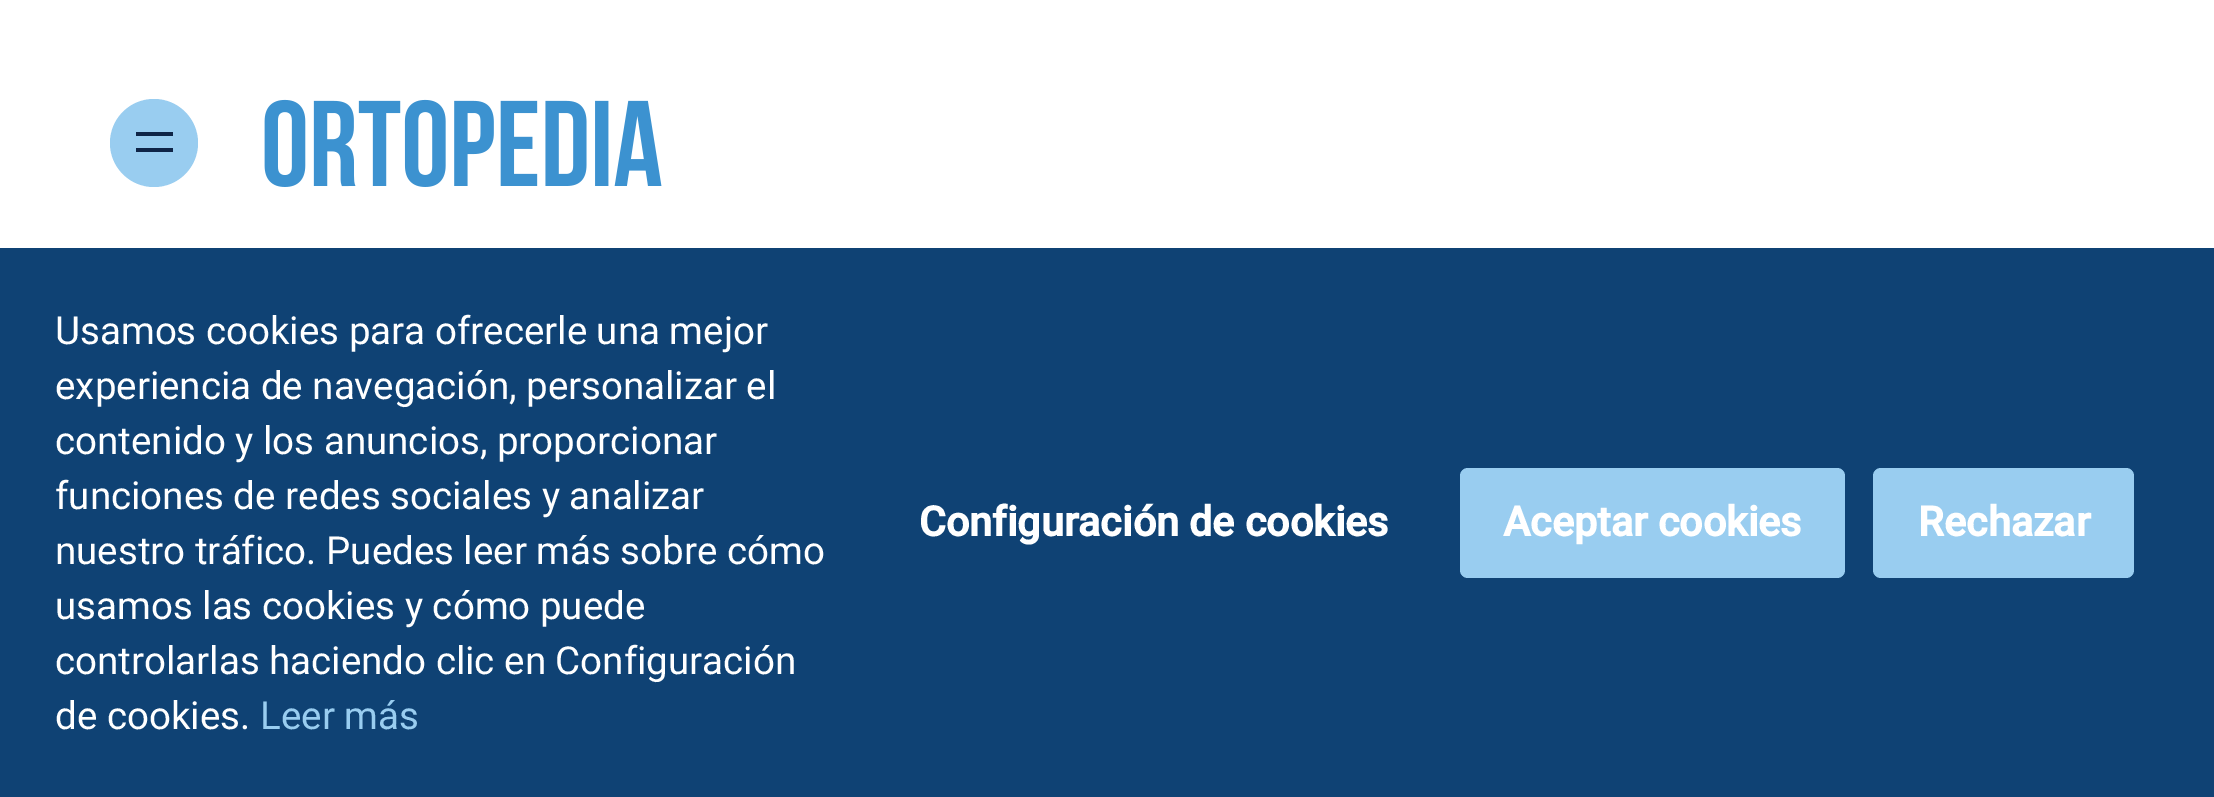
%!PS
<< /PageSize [2214 797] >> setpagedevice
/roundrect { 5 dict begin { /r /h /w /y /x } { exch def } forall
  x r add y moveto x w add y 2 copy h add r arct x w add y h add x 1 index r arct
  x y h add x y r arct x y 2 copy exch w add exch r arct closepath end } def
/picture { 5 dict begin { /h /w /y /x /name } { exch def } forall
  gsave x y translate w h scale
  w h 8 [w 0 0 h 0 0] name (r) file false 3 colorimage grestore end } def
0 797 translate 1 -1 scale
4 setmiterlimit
1 setgray
0 0 2214 797 rectfill
0.6 0.804 0.941 setrgbcolor
newpath 154 143 44 0 360 arc closepath fill
0.059 0.145 0.278 setrgbcolor
136 132 37 4 rectfill
136 148 37 4 rectfill
(img1.rgb) 264 99 398 88 picture
0.059 0.259 0.455 setrgbcolor
0 248 2214 549 rectfill
/Roboto-Regular [38.5 0 0 -38.5 0 0] selectfont
1 setgray
55 344 moveto (Usamos cookies para ofrecerle una mejor) show
55 399 moveto (experiencia de navegación, personalizar el) show
55 454 moveto (contenido y los anuncios, proporcionar) show
55 509 moveto (funciones de redes sociales y analizar) show
55 564 moveto (nuestro tráfico. Puedes leer más sobre cómo) show
55 619 moveto (usamos las cookies y cómo puede) show
55 674 moveto (controlarlas haciendo clic en Configuración) show
55 729 moveto (de cookies.) show
0.6 0.804 0.941 setrgbcolor
260 729 moveto (Leer más) show
/Roboto-Bold [41.25 0 0 -41.25 0 0] selectfont
1 setgray
919 536 moveto (Configuración de cookies) show
0.6 0.804 0.941 setrgbcolor
1460 468 385 110 8 roundrect fill
1 setgray
1503 536 moveto (Aceptar cookies) show
0.6 0.804 0.941 setrgbcolor
1873 468 261 110 8 roundrect fill
1 setgray
1918 536 moveto (Rechazar) show
showpage
